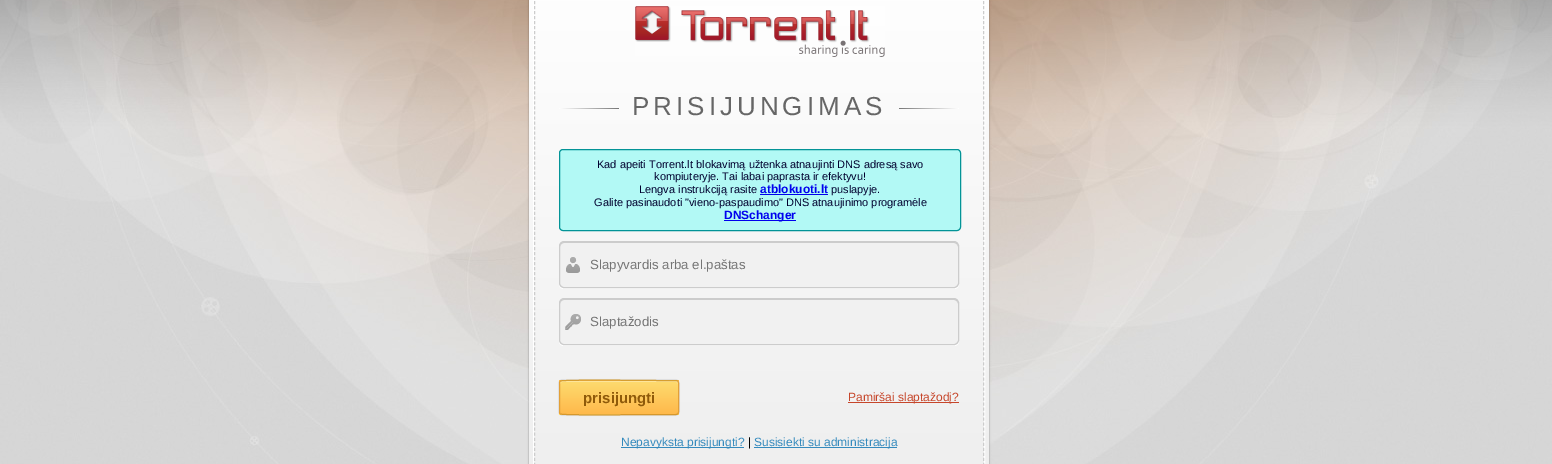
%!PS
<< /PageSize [1552 464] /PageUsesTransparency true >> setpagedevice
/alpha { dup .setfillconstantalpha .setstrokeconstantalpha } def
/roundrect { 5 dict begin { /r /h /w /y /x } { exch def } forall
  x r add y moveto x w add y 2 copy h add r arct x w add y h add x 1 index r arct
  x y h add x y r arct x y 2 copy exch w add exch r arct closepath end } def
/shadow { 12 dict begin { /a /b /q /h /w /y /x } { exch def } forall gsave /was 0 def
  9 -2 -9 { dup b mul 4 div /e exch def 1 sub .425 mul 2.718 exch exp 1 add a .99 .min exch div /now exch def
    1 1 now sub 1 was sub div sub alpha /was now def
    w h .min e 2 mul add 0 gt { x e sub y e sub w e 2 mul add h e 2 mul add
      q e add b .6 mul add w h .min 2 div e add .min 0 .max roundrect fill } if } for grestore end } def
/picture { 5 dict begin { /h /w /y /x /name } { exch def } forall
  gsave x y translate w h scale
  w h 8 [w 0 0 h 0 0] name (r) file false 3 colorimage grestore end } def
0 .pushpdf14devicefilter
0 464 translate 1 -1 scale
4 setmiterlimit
1 setgray
0 0 1552 464 rectfill
(img1.rgb) 0 0 1552 464 picture
0 setgray
529 -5 460 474 3 0.5 0.2 shadow
529 -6 460 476 3 1 0.2 shadow
gsave newpath 529 0 moveto 989 0 lineto 989 464 lineto 529 464 lineto closepath clip newpath
<< /ShadingType 2 /ColorSpace /DeviceRGB /Coords [759 -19 759 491] /Extend [true true] /Function << /FunctionType 2 /Domain [0 1] /C0 [1 1 1] /C1 [0.933 0.933 0.933] /N 1 >> >> shfill grestore
1 setgray
533.5 -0.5 451 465 rectstroke
0.8 setgray
[3 2.02] 0 setdash
newpath 983.5 -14 moveto 983.5 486 lineto stroke
newpath 534.5 -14 moveto 534.5 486 lineto stroke
(img2.rgb) 635 6 250 51 picture
gsave newpath 559 108 moveto 619 108 lineto 619 109 lineto 559 109 lineto closepath clip newpath
<< /ShadingType 2 /ColorSpace /DeviceRGB /Coords [619 109 559 109] /Extend [true true] /Function << /FunctionType 2 /Domain [0 1] /C0 [0.467 0.467 0.467] /C1 [1 1 1] /N 1 >> >> shfill grestore
/LiberationSans-Regular [26 0 0 -26 0 0] selectfont
0.4 setgray
632 115 moveto 4 0 (PRISIJUNGIMAS) ashow
gsave newpath 899 108 moveto 959 108 lineto 959 109 lineto 899 109 lineto closepath clip newpath
<< /ShadingType 2 /ColorSpace /DeviceRGB /Coords [899 109 959 109] /Extend [true true] /Function << /FunctionType 2 /Domain [0 1] /C0 [0.467 0.467 0.467] /C1 [1 1 1] /N 1 >> >> shfill grestore
0.698 0.976 0.961 setrgbcolor
559.5 149.5 401 81 3.5 roundrect gsave fill grestore
0.012 0.58 0.592 setrgbcolor
[] 0 setdash
stroke
/LiberationSans-Regular [11 0 0 -11 0 0] selectfont
0 0 0.18 setrgbcolor
597 168 moveto (Kad apeiti Torrent.lt blokavimą užtenka atnaujinti DNS adresą savo) show
654 180 moveto (kompiuteryje. Tai labai paprasta ir efektyvu!) show
639 193 moveto (Lengva instrukciją rasite) show
/LiberationSans-Bold [12 0 0 -12 0 0] selectfont
0 0 0.933 setrgbcolor
760 193 moveto (atblokuoti.lt) show
760 194 68 1 rectfill
/LiberationSans-Regular [11 0 0 -11 0 0] selectfont
0 0 0.18 setrgbcolor
831 193 moveto (puslapyje.) show
594 206 moveto (Galite pasinaudoti "vieno-paspaudimo" DNS atnaujinimo programėle) show
0 0 0.933 setrgbcolor
724 220 72 1 rectfill
/LiberationSans-Bold [12 0 0 -12 0 0] selectfont
724 219 moveto (DNSchanger) show
1 setgray
newpath 559 283 moveto 559 284 lineto 559 287 561 289 564 289 curveto 954 289 lineto 957 289 959 287 959 284 curveto 959 283 lineto 959 286 957 288 954 288 curveto 564 288 lineto 561 288 559 286 559 283 curveto closepath fill
0.945 setgray
559 241 400 47 5 roundrect fill
(img3.rgb) 566 257 14 16 picture
0.8 setgray
newpath 564 243 moveto 954 243 lineto 956 243 958 245 958 247 curveto 958 244 957 242 954 242 curveto 564 242 lineto 561 242 560 244 560 247 curveto 560 245 562 243 564 243 curveto closepath fill
559.5 241.5 399 46 4.5 roundrect stroke
/LiberationSans-Regular [13.25 0 0 -13.25 0 0] selectfont
0.459 setgray
590 269 moveto (Slapyvardis arba el.paštas) show
1 setgray
newpath 559 340 moveto 559 341 lineto 559 344 561 346 564 346 curveto 954 346 lineto 957 346 959 344 959 341 curveto 959 340 lineto 959 343 957 345 954 345 curveto 564 345 lineto 561 345 559 343 559 340 curveto closepath fill
0.945 setgray
559 298 400 47 5 roundrect fill
(img4.rgb) 565 314 16 16 picture
0.8 setgray
newpath 564 300 moveto 954 300 lineto 956 300 958 302 958 304 curveto 958 301 957 299 954 299 curveto 564 299 lineto 561 299 560 301 560 304 curveto 560 302 562 300 564 300 curveto closepath fill
559.5 298.5 399 46 4.5 roundrect stroke
0.459 setgray
590 326 moveto (Slaptažodis) show
0 setgray
559 380 120 35 3 0.5 0.3 shadow
gsave
559 380 120 35 3 roundrect clip newpath
gsave newpath 559 380 moveto 679 380 lineto 679 381 lineto 559 381 lineto closepath clip newpath
<< /ShadingType 2 /ColorSpace /DeviceRGB /Coords [619 348 619 381] /Extend [true true] /Function << /FunctionType 2 /Domain [0 1] /C0 [0.992 0.859 0.435] /C1 [1 0.725 0.294] /N 1 >> >> shfill grestore
gsave newpath 559 381 moveto 679 381 lineto 679 414 lineto 559 414 lineto closepath clip newpath
<< /ShadingType 2 /ColorSpace /DeviceRGB /Coords [619 381 619 414] /Extend [true true] /Function << /FunctionType 2 /Domain [0 1] /C0 [0.992 0.859 0.435] /C1 [1 0.725 0.294] /N 1 >> >> shfill grestore
gsave newpath 559 414 moveto 679 414 lineto 679 415 lineto 559 415 lineto closepath clip newpath
<< /ShadingType 2 /ColorSpace /DeviceRGB /Coords [619 414 619 447] /Extend [true true] /Function << /FunctionType 2 /Domain [0 1] /C0 [0.992 0.859 0.435] /C1 [1 0.725 0.294] /N 1 >> >> shfill grestore
grestore
0.3 alpha
1 setgray
newpath 562 382 moveto 676 382 lineto 677 382 678 383 678 384 curveto 678 383 678 382 677 381 curveto 581 381 lineto 575 381 560 377 560 384 curveto 560 383 561 382 562 382 curveto closepath fill
1 alpha
0.839 0.62 0.192 setrgbcolor
newpath 560 381 moveto 560.5 381 lineto 562.5 379.5 647.5 380.5 657 380.5 curveto 676 380.5 lineto 678 381 lineto stroke
0.89 0.627 0.216 setrgbcolor
newpath 678 381 moveto 678 381.5 678.5 382.5 678.5 383 curveto 678.5 412 lineto 678.5 412.5 678 413.5 678 414 curveto stroke
0.835 0.596 0.176 setrgbcolor
newpath 678 414 moveto 676 414.5 lineto 657 414.5 lineto 647.5 414.5 562.5 415.5 560.5 414 curveto 560 414 lineto stroke
0.89 0.627 0.216 setrgbcolor
newpath 560 414 moveto 560 413.5 559.5 412.5 559.5 412 curveto 559.5 383 lineto 559.5 382.5 560 381.5 560 381 curveto stroke
/LiberationSans-Bold [15 0 0 -15 0 0] selectfont
0.561 0.353 0.039 setrgbcolor
583 403 moveto (prisijungti) show
0.776 0.275 0.169 setrgbcolor
848 402 111 1 rectfill
/LiberationSans-Regular [12 0 0 -12 0 0] selectfont
848 401 moveto (Pamiršai slaptažodį?) show
0.204 0.541 0.741 setrgbcolor
621 447 123 1 rectfill
621 446 moveto (Nepavyksta prisijungti?) show
0 setgray
748 446 moveto (|) show
0.204 0.541 0.741 setrgbcolor
754 447 143 1 rectfill
754 446 moveto (Susisiekti su administracija) show
.poppdf14devicefilter showpage
